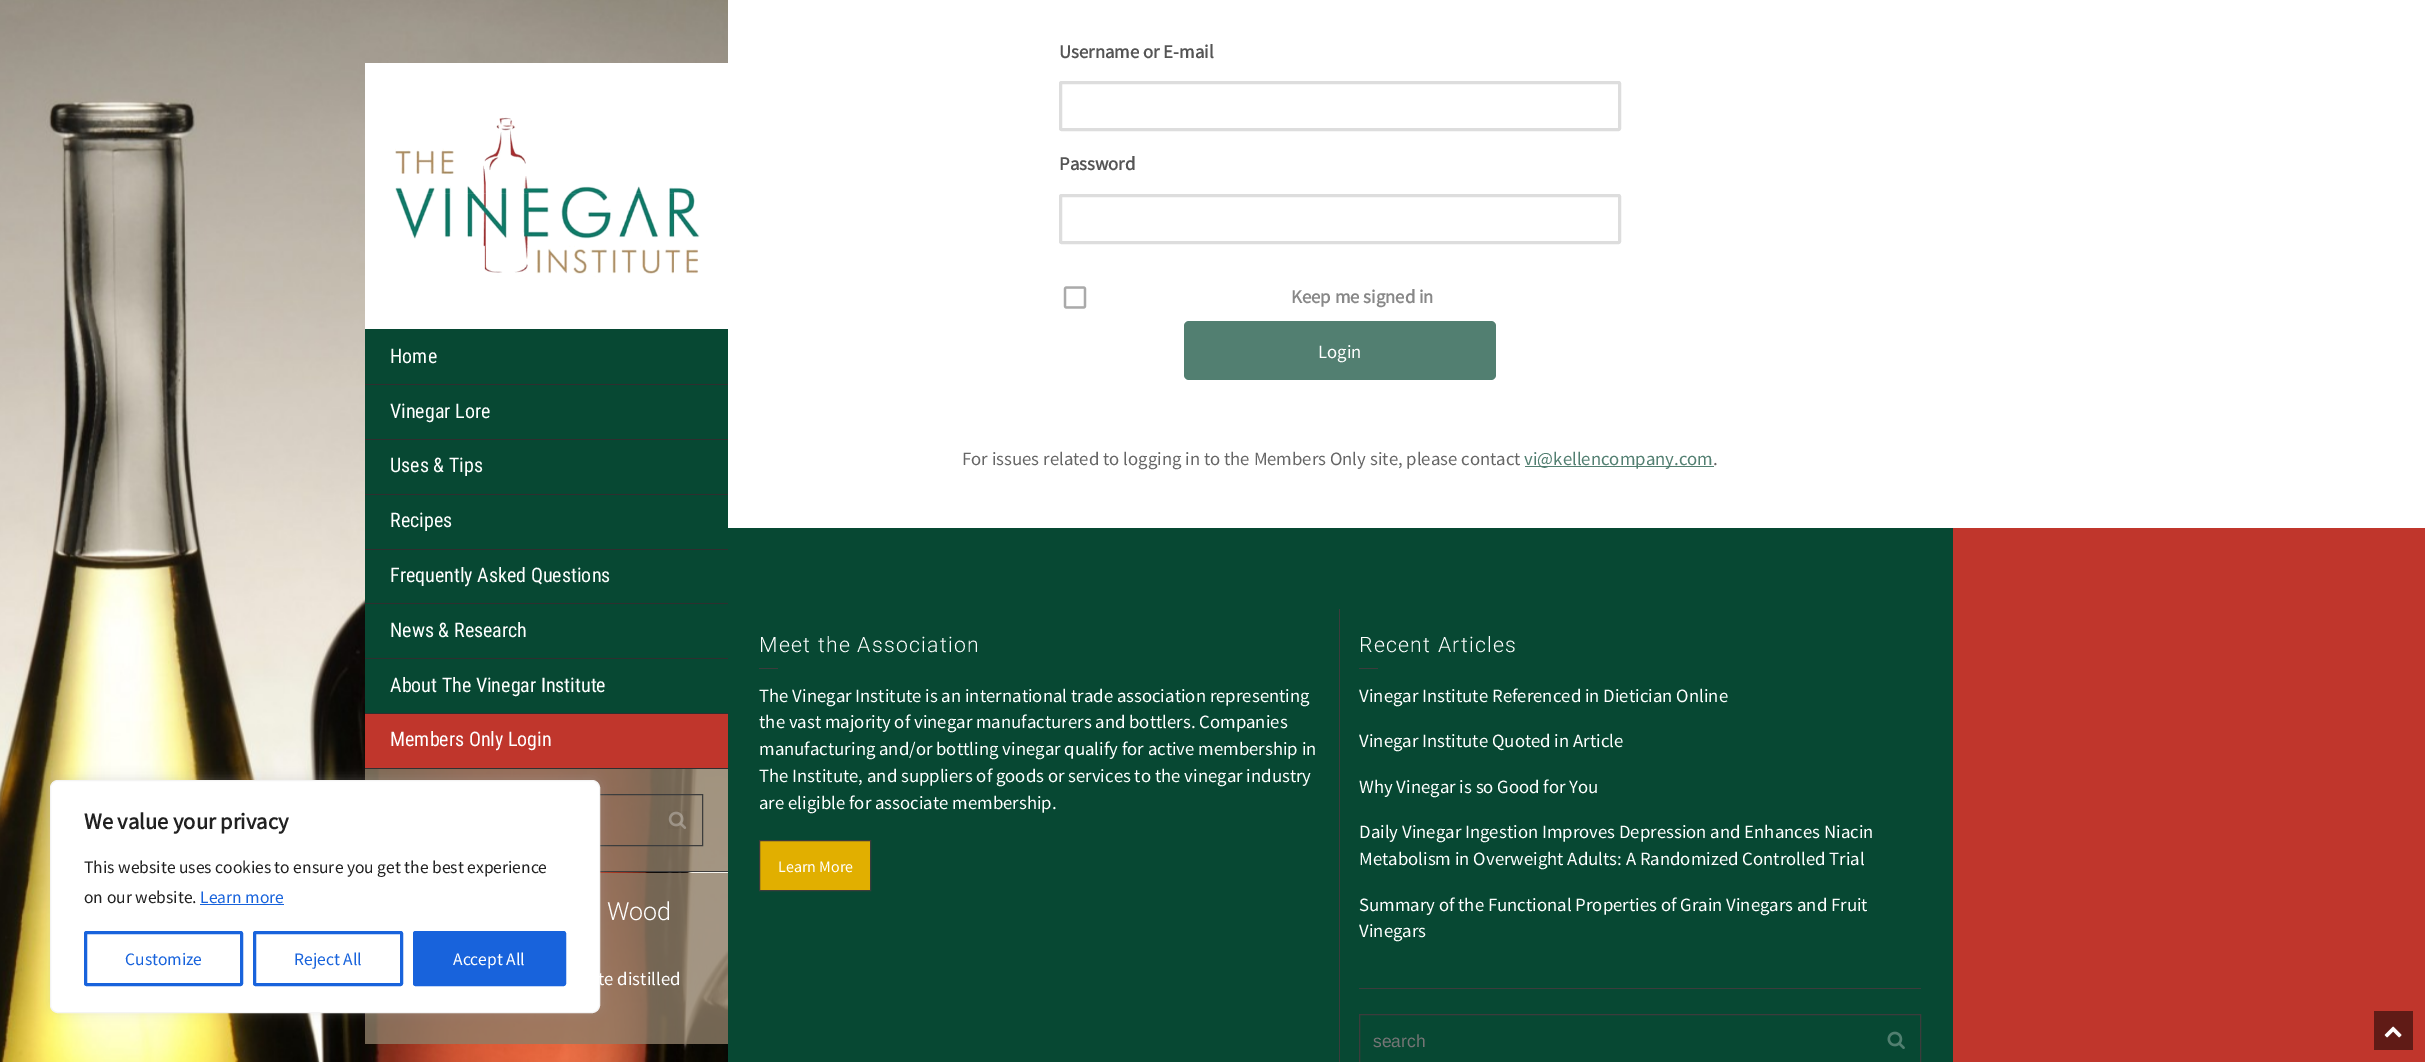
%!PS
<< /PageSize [2425 1062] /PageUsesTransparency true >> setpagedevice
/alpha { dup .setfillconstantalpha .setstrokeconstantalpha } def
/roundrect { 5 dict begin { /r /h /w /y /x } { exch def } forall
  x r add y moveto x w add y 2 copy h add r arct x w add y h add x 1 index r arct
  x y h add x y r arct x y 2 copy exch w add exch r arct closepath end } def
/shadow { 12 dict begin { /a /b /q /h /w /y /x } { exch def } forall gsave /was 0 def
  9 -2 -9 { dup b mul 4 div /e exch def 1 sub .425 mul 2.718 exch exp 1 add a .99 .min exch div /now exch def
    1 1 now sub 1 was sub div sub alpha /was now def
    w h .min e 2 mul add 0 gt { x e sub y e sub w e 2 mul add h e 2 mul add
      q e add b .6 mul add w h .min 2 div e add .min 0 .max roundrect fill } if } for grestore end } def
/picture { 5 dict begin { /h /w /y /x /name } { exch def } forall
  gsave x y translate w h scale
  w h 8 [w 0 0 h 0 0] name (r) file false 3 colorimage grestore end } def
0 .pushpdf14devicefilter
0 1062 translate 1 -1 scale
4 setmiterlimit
0.753 0.212 0.173 setrgbcolor
0 0 2425 1062 rectfill
(img1.rgb) 0 0 728 1062 picture
365 714 363 54 rectfill
0.184 setgray
365 768 363 1 rectfill
0.8 alpha
0.557 0.49 0.404 setrgbcolor
365 769 363 102 rectfill
1 alpha
0.239 setgray
600 871 128 1 rectfill
390.5 794.5 312 51 rectstroke
0.8 alpha
0.557 0.49 0.404 setrgbcolor
365 873 363 171 rectfill
1 alpha
0.675 0.671 0.671 setrgbcolor
50 779 550 232 8 6 0.3 shadow
1 setgray
50.5 780.5 549 232 7.5 roundrect gsave fill grestore
0.957 setgray
stroke
/SourceSansPro-Bold [22.5 0 0 -22.5 0 0] selectfont
0.129 setgray
84 829 moveto (We value your privacy) show
/SourceSansPro-Regular [17.5 0 0 -17.5 0 0] selectfont
84 873 moveto (This website uses cookies to ensure you get the best experience) show
84 903 moveto (on our website.) show
0.094 0.388 0.863 setrgbcolor
200 903 moveto (Learn more) show
200 904 84 1 rectfill
3 setlinewidth
85.5 932.5 156 52 1 roundrect stroke
125 965 moveto (Customize) show
254.5 932.5 147 52 1 roundrect stroke
294 965 moveto (Reject All) show
414.5 932.5 150 52 1 roundrect gsave fill grestore
stroke
1 setgray
453 965 moveto (Accept All) show
365 63 363 266 rectfill
0.027 0.282 0.2 setrgbcolor
365 329 363 55 rectfill
(img2.rgb) 395 117 305 160 picture
0.184 setgray
365 384 363 1 rectfill
/RobotoCondensed-Regular [20 0 0 -20 0 0] selectfont
1 setgray
390 363 moveto (Home) show
0.027 0.282 0.2 setrgbcolor
365 385 363 54 rectfill
0.184 setgray
365 439 363 1 rectfill
1 setgray
390 418 moveto (Vinegar Lore) show
0.027 0.282 0.2 setrgbcolor
365 440 363 54 rectfill
0.184 setgray
365 494 363 1 rectfill
1 setgray
390 472 moveto (Uses & Tips) show
0.027 0.282 0.2 setrgbcolor
365 495 363 54 rectfill
0.184 setgray
365 549 363 1 rectfill
1 setgray
390 527 moveto (Recipes) show
0.027 0.282 0.2 setrgbcolor
365 550 363 53 rectfill
0.184 setgray
365 603 363 1 rectfill
1 setgray
390 582 moveto (Frequently Asked Questions) show
0.027 0.282 0.2 setrgbcolor
365 604 363 54 rectfill
0.184 setgray
365 658 363 1 rectfill
1 setgray
390 637 moveto (News & Research) show
0.027 0.282 0.2 setrgbcolor
365 659 363 54 rectfill
0.184 setgray
365 713 363 1 rectfill
1 setgray
390 692 moveto (About The Vinegar Institute) show
390 746 moveto (Members Only Login) show
(img3.rgb) 668 811 19 18 picture
/Roboto-Light [25 0 0 -25 0 0] selectfont
607 920 moveto (Wood) show
/SourceSansPro-Regular [18.75 0 0 -18.75 0 0] selectfont
598 985 moveto (te distilled) show
728 0 1697 528 rectfill
/SourceSansPro-Bold [18.75 0 0 -18.75 0 0] selectfont
0.333 setgray
1059 58 moveto (Username or E-mail) show
0.867 setgray
1060.5 82.5 559 47 1 roundrect stroke
0.333 setgray
1059 170 moveto (Password) show
0.867 setgray
1060.5 195.5 559 47 1 roundrect stroke
(img4.rgb) 1063 286 24 23 picture
0.533 setgray
1291 303 moveto (Keep me signed in) show
0.322 0.498 0.443 setrgbcolor
1184 321 312 59 5 roundrect fill
/SourceSansPro-Regular [18.75 0 0 -18.75 0 0] selectfont
1 setgray
1318 358 moveto (Login) show
0.4 setgray
962 465 moveto (For issues related to logging in to the Members Only site, please contact) show
0.322 0.498 0.443 setrgbcolor
1525 466 189 1 rectfill
1524 465 moveto (vi@kellencompany.com) show
0.4 setgray
1713 465 moveto (.) show
0.027 0.282 0.2 setrgbcolor
728 528 1225 534 rectfill
/Roboto-Light [21.25 0 0 -21.25 0 0] selectfont
1 setgray
759 652 moveto 1.25 0 (Meet the Association) ashow
0.235 setgray
759 668 19 1 rectfill
/SourceSansPro-Regular [18.75 0 0 -18.75 0 0] selectfont
1 setgray
759 702 moveto (The Vinegar Institute is an international trade association representing) show
759 728 moveto (the vast majority of vinegar manufacturers and bottlers. Companies) show
759 755 moveto (manufacturing and/or bottling vinegar qualify for active membership in) show
759 782 moveto (The Institute, and suppliers of goods or services to the vinegar industry) show
759 809 moveto (are eligible for associate membership.) show
0.882 0.686 0 setrgbcolor
newpath 759.5 840.5 moveto 870.5 840.5 lineto 870.5 890.5 lineto 759.5 890.5 lineto closepath gsave fill grestore
0.235 setgray
1 setlinewidth
stroke
/SourceSansPro-Regular [16 0 0 -16 0 0] selectfont
1 setgray
778 872 moveto (Learn More) show
0.235 setgray
1339 609 1 453 rectfill
/Roboto-Light [21.25 0 0 -21.25 0 0] selectfont
1 setgray
1359 652 moveto 1.25 0 (Recent Articles) ashow
0.235 setgray
1359 668 19 1 rectfill
/SourceSansPro-Regular [18.75 0 0 -18.75 0 0] selectfont
1 setgray
1359 702 moveto (Vinegar Institute Referenced in Dietician Online) show
1359 747 moveto (Vinegar Institute Quoted in Article) show
1359 793 moveto (Why Vinegar is so Good for You) show
1359 838 moveto (Daily Vinegar Ingestion Improves Depression and Enhances Niacin) show
1359 865 moveto (Metabolism in Overweight Adults: A Randomized Controlled Trial) show
1359 911 moveto (Summary of the Functional Properties of Grain Vinegars and Fruit) show
1359 937 moveto (Vinegars) show
0.235 setgray
1359 988 562 1 rectfill
1359.5 1014.5 561 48 rectstroke
/LiberationSans-Regular [17.5 0 0 -17.5 0 0] selectfont
0.459 setgray
1373 1047 moveto (search) show
(img5.rgb) 1887 1031 18 18 picture
0.376 0.106 0.086 setrgbcolor
2374 1011 39 39 rectfill
(img6.rgb) 2384 1026 18 12 picture
.poppdf14devicefilter showpage
